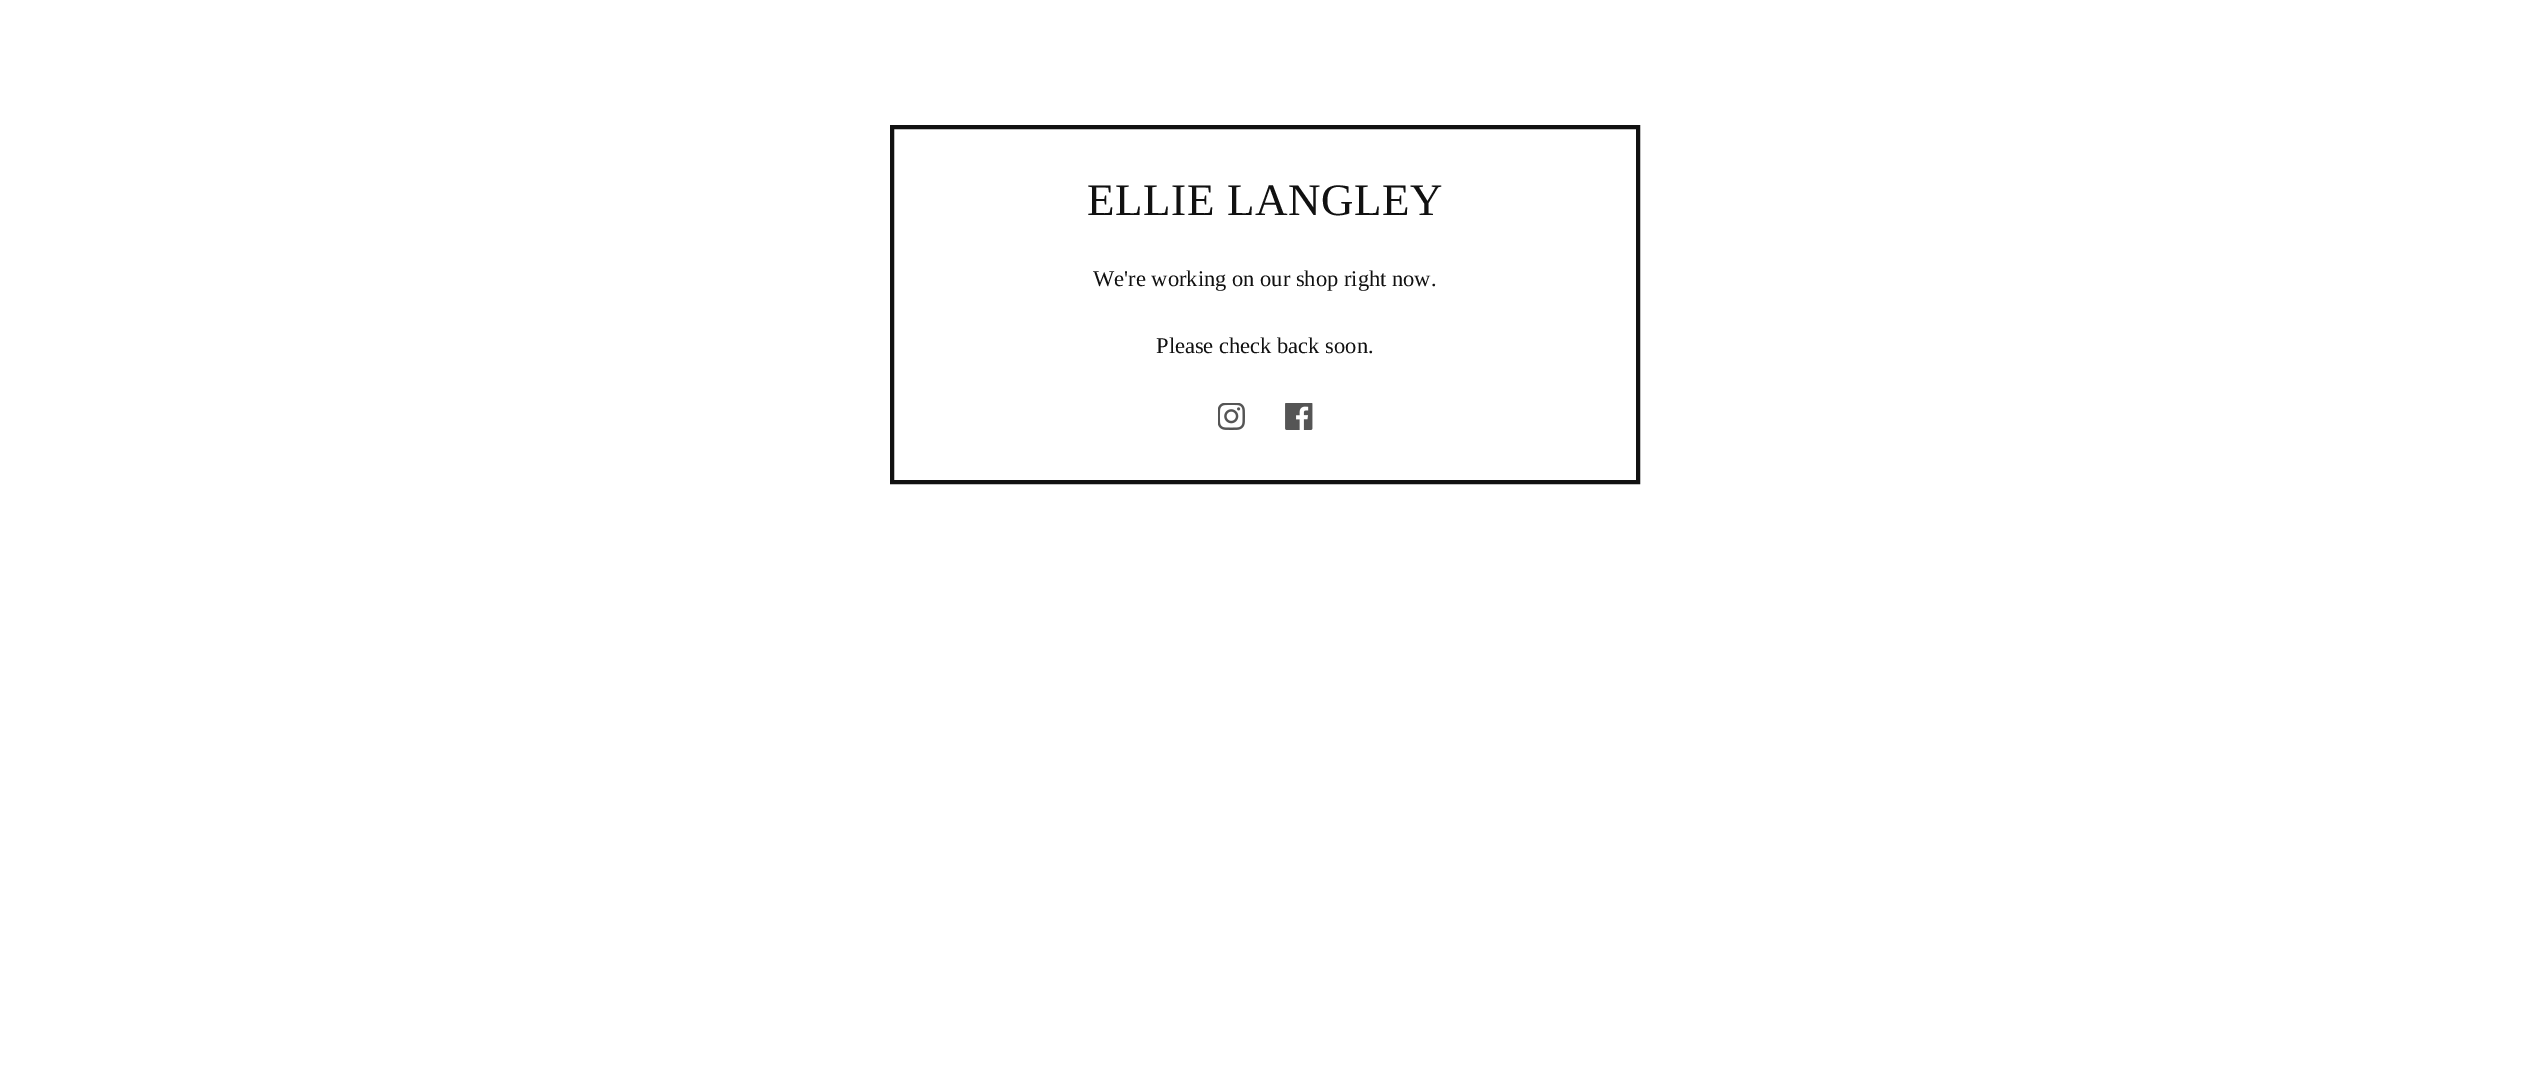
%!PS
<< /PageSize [2529 1089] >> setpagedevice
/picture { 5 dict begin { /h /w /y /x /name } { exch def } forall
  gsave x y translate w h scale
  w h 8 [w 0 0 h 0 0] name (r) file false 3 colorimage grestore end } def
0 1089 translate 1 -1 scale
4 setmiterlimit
1 setgray
0 0 2529 1089 rectfill
0.067 setgray
4 setlinewidth
892 127 746 355 rectstroke
/LiberationSerif-Regular [45 0 0 -45 0 0] selectfont
1087 215 moveto 0.6 0 (ELLIE LANGLEY) ashow
/LiberationSerif-Regular [22.5 0 0 -22.5 0 0] selectfont
1093 286 moveto (We're working on our shop right now.) show
1156 353 moveto (Please check back soon.) show
(img1.rgb) 1218 403 27 27 picture
(img2.rgb) 1285 403 28 27 picture
showpage
